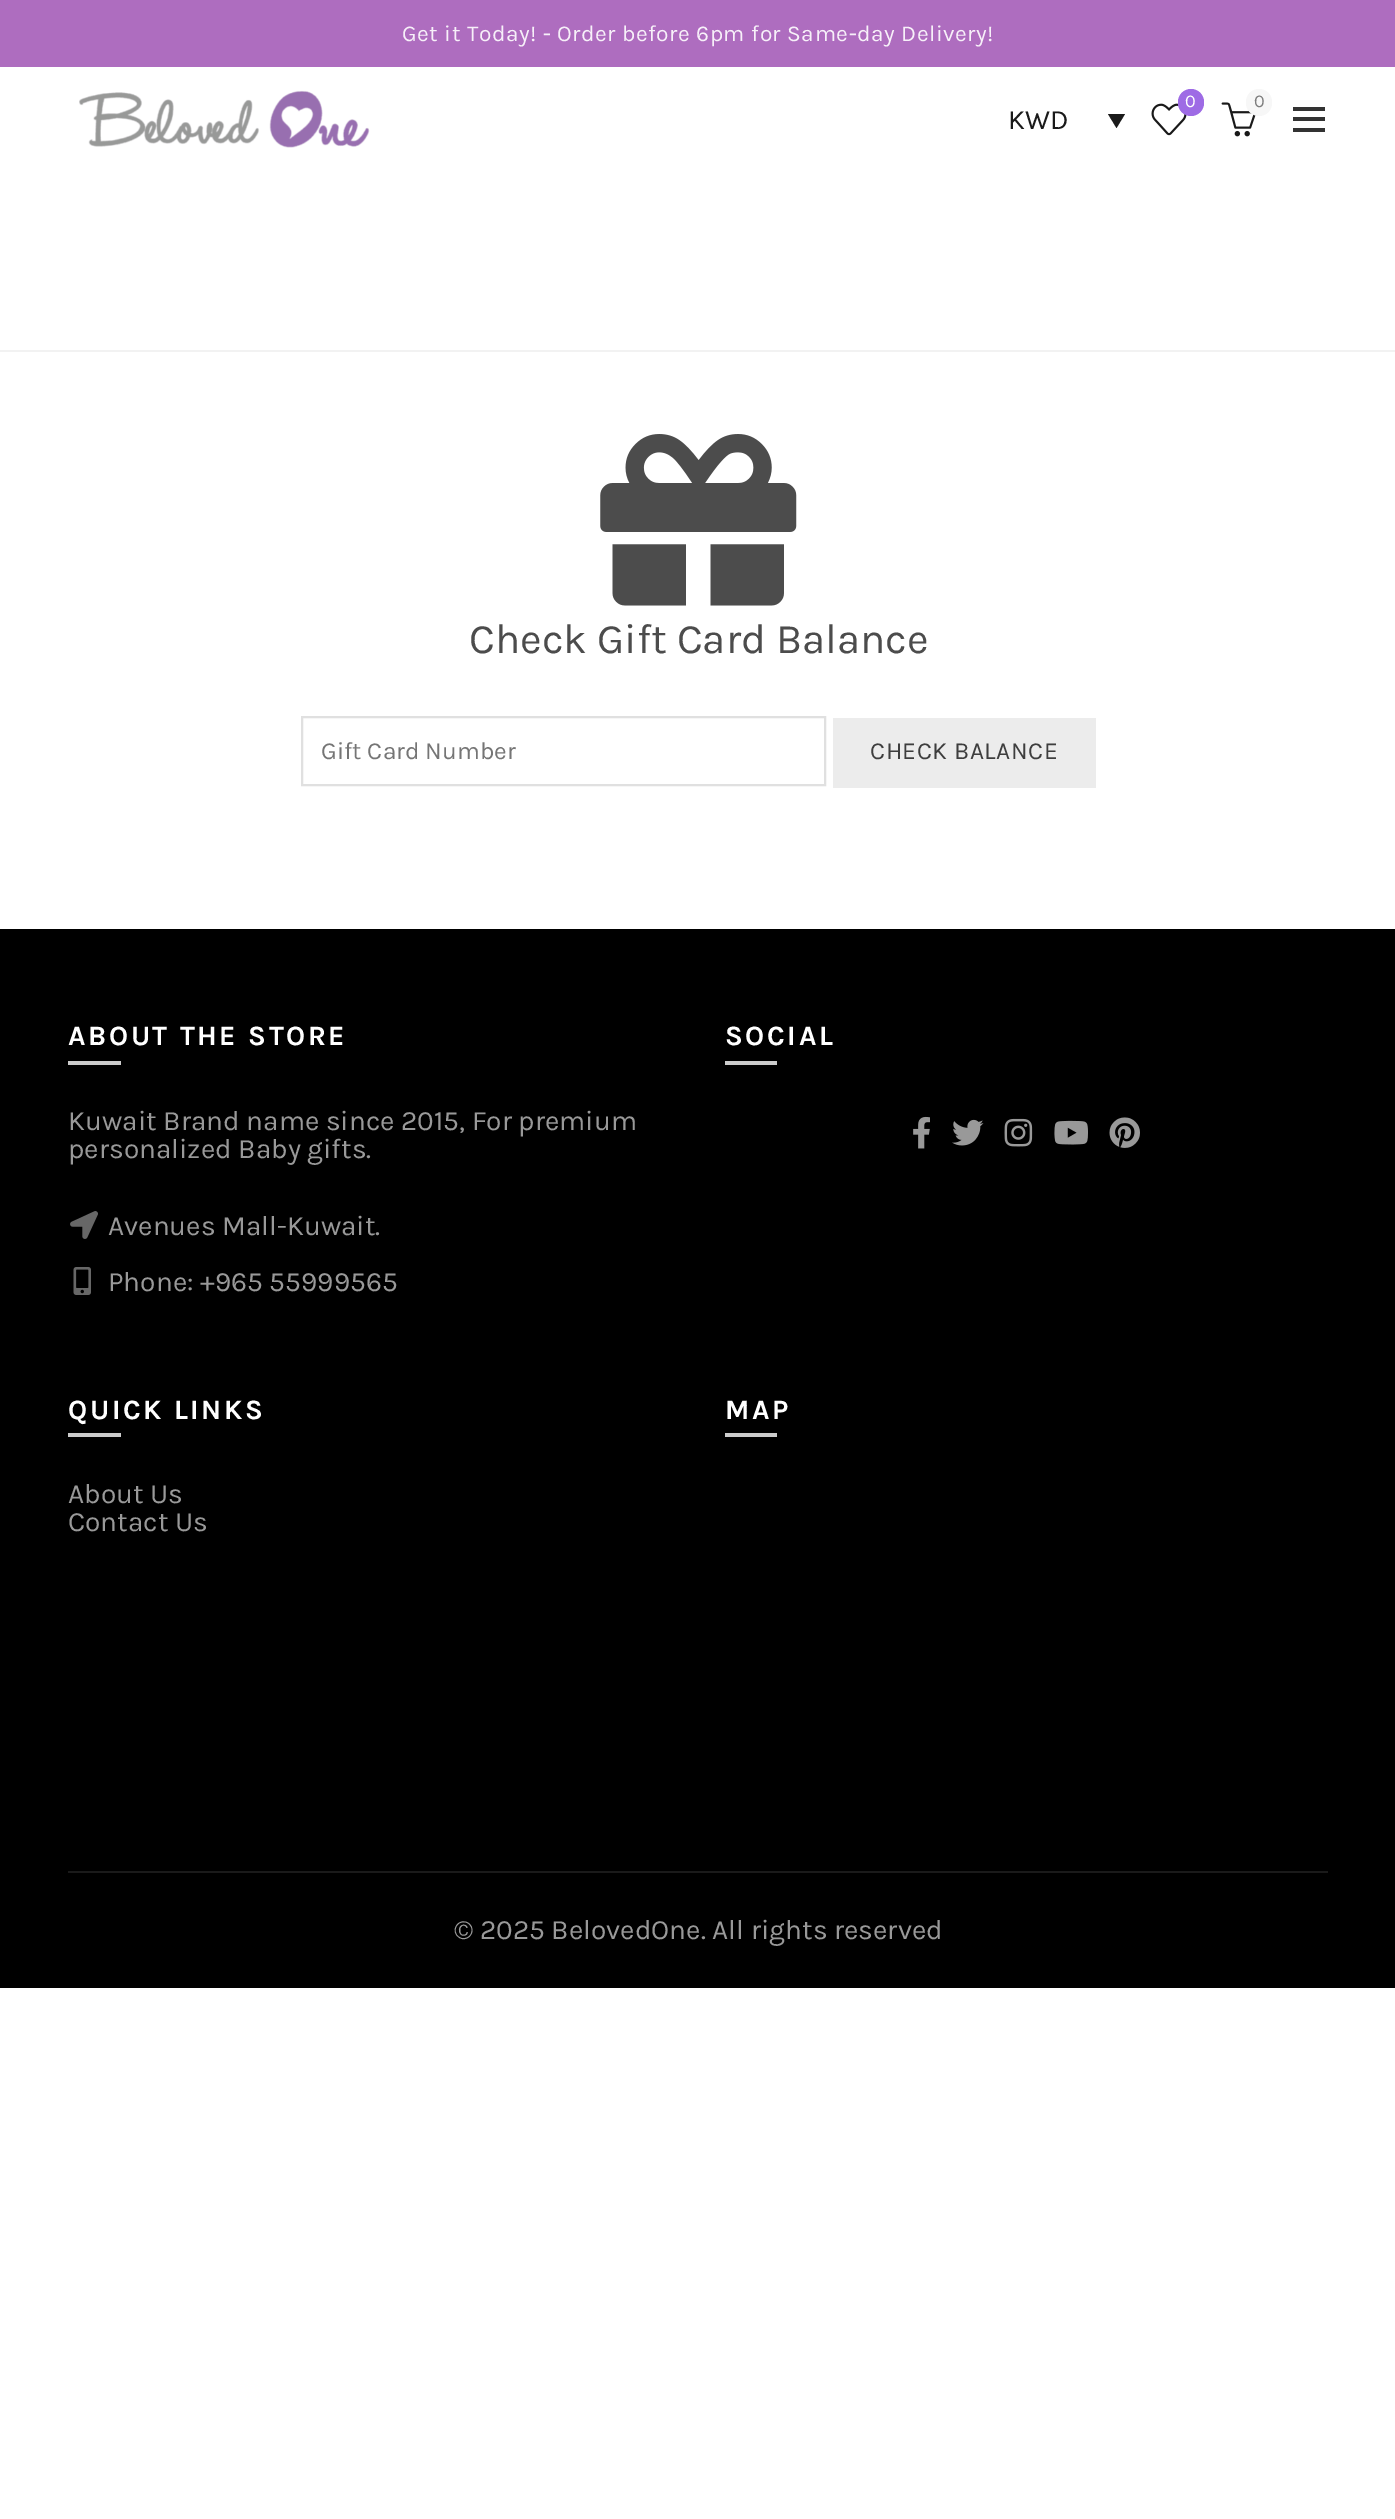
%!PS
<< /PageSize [1395 2519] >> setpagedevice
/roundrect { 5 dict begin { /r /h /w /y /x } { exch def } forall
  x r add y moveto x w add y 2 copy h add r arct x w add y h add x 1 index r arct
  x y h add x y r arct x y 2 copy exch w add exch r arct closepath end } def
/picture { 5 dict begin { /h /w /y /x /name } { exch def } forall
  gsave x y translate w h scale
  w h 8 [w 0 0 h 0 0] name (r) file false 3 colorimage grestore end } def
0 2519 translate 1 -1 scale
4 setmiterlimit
1 setgray
0 0 1395 2519 rectfill
0.682 0.427 0.749 setrgbcolor
0 0 1395 67 rectfill
/Karla-Regular [22.75 0 0 -22.75 0 0] selectfont
0.969 0.941 0.976 setrgbcolor
402 41 moveto 0.53 0 (Get it Today! - Order before 6pm for Same-day Delivery!) ashow
(img1.rgb) 79 90 291 58 picture
(img2.rgb) 1151 103 36 33 picture
0.62 0.42 0.898 setrgbcolor
1178 89 26 27 13 roundrect fill
/Karla-Regular [18 0 0 -18 0 0] selectfont
1 setgray
1185 107 moveto (0) show
(img3.rgb) 1221 102 35 35 picture
0.969 setgray
1246 89 26 27 13 roundrect fill
0.494 setgray
1254 107 moveto (0) show
/Karla-Regular [28 0 0 -28 0 0] selectfont
0.102 setgray
1008 129 moveto (KWD) show
newpath 1108 114 moveto 1125 114 lineto 1116.5 128 lineto closepath fill
0.2 setgray
1293 117 32 4 rectfill
1293 107 32 4 rectfill
1293 128 32 4 rectfill
0.949 setgray
0 350 1395 2 rectfill
(img4.rgb) 600 434 197 172 picture
/Karla-Regular [42 0 0 -42 0 0] selectfont
0.298 setgray
469 653 moveto (Check Gift Card Balance) show
0.878 setgray
2 setlinewidth
302 717 523 68 rectstroke
/Karla-Regular [24.5 0 0 -24.5 0 0] selectfont
0.459 setgray
321 759 moveto (Gift Card Number) show
0.925 setgray
833 718 263 70 rectfill
0.243 setgray
870 759 moveto 0.53 0 (CHECK BALANCE) ashow
0 setgray
0 929 1395 1059 rectfill
/Karla-Bold [28 0 0 -28 0 0] selectfont
1 setgray
68 1045 moveto 2.6 0 (ABOUT THE STORE) ashow
0.8 setgray
68 1061 53 4 rectfill
/Karla-Regular [28 0 0 -28 0 0] selectfont
0.6 setgray
68 1130 moveto (Kuwait Brand name since 2015, For premium) show
68 1158 moveto (personalized Baby gifts.) show
(img5.rgb) 70 1211 28 28 picture
108 1235 moveto (Avenues Mall-Kuwait.) show
(img6.rgb) 73 1267 18 28 picture
108 1291 moveto (Phone: +965 55999565) show
/Karla-Bold [28 0 0 -28 0 0] selectfont
1 setgray
725 1045 moveto 2.6 0 (SOCIAL) ashow
0.8 setgray
725 1061 52 4 rectfill
(img7.rgb) 913 1116 17 33 picture
(img8.rgb) 952 1119 32 27 picture
(img9.rgb) 1004 1118 29 29 picture
(img10.rgb) 1054 1120 34 25 picture
(img11.rgb) 1109 1117 31 31 picture
1 setgray
68 1419 moveto 2.6 0 (QUICK LINKS) ashow
0.8 setgray
68 1433 53 4 rectfill
/Karla-Regular [28 0 0 -28 0 0] selectfont
0.6 setgray
68 1503 moveto (About Us) show
68 1531 moveto (Contact Us) show
/Karla-Bold [28 0 0 -28 0 0] selectfont
1 setgray
725 1419 moveto 2.6 0 (MAP) ashow
0.8 setgray
725 1433 52 4 rectfill
0.102 setgray
68 1871 1260 2 rectfill
/Karla-Regular [28 0 0 -28 0 0] selectfont
0.6 setgray
454 1939 moveto (© 2025 BelovedOne. All rights reserved) show
showpage
